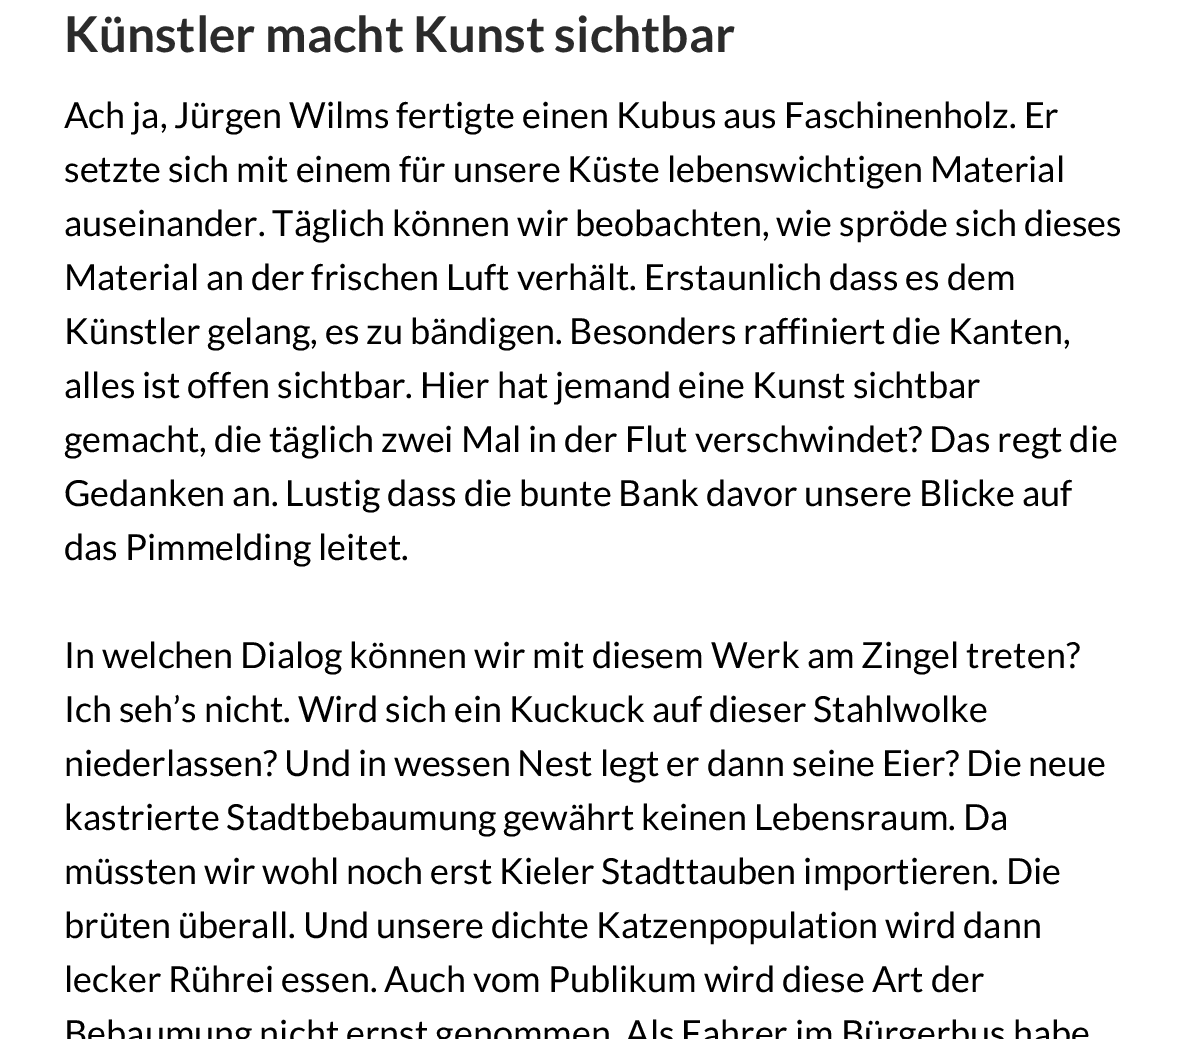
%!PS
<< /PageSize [1194 1039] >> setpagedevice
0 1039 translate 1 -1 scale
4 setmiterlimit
1 setgray
0 0 1194 1039 rectfill
/Lato-Bold [49.5 0 0 -49.5 0 0] selectfont
0.169 setgray
64 52 moveto (Künstler macht Kunst sichtbar) show
/Lato-Regular [36 0 0 -36 0 0] selectfont
0 setgray
64 128 moveto (Ach ja, Jürgen Wilms fertigte einen Kubus aus Faschinenholz. Er) show
64 182 moveto (setzte sich mit einem für unsere Küste lebenswichtigen Material) show
64 236 moveto (auseinander. Täglich können wir beobachten, wie spröde sich dieses) show
64 290 moveto (Material an der frischen Luft verhält. Erstaunlich dass es dem) show
64 344 moveto (Künstler gelang, es zu bändigen. Besonders raffiniert die Kanten,) show
64 398 moveto (alles ist offen sichtbar. Hier hat jemand eine Kunst sichtbar) show
64 452 moveto (gemacht, die täglich zwei Mal in der Flut verschwindet? Das regt die) show
64 506 moveto (Gedanken an. Lustig dass die bunte Bank davor unsere Blicke auf) show
64 560 moveto (das Pimmelding leitet.) show
64 668 moveto (In welchen Dialog können wir mit diesem Werk am Zingel treten?) show
64 722 moveto (Ich seh’s nicht. Wird sich ein Kuckuck auf dieser Stahlwolke) show
64 776 moveto (niederlassen? Und in wessen Nest legt er dann seine Eier? Die neue) show
64 830 moveto (kastrierte Stadtbebaumung gewährt keinen Lebensraum. Da) show
64 884 moveto (müssten wir wohl noch erst Kieler Stadttauben importieren. Die) show
64 938 moveto (brüten überall. Und unsere dichte Katzenpopulation wird dann) show
64 992 moveto (lecker Rührei essen. Auch vom Publikum wird diese Art der) show
64 1046 moveto (Bebaumung nicht ernst genommen. Als Fahrer im Bürgerbus habe) show
showpage
